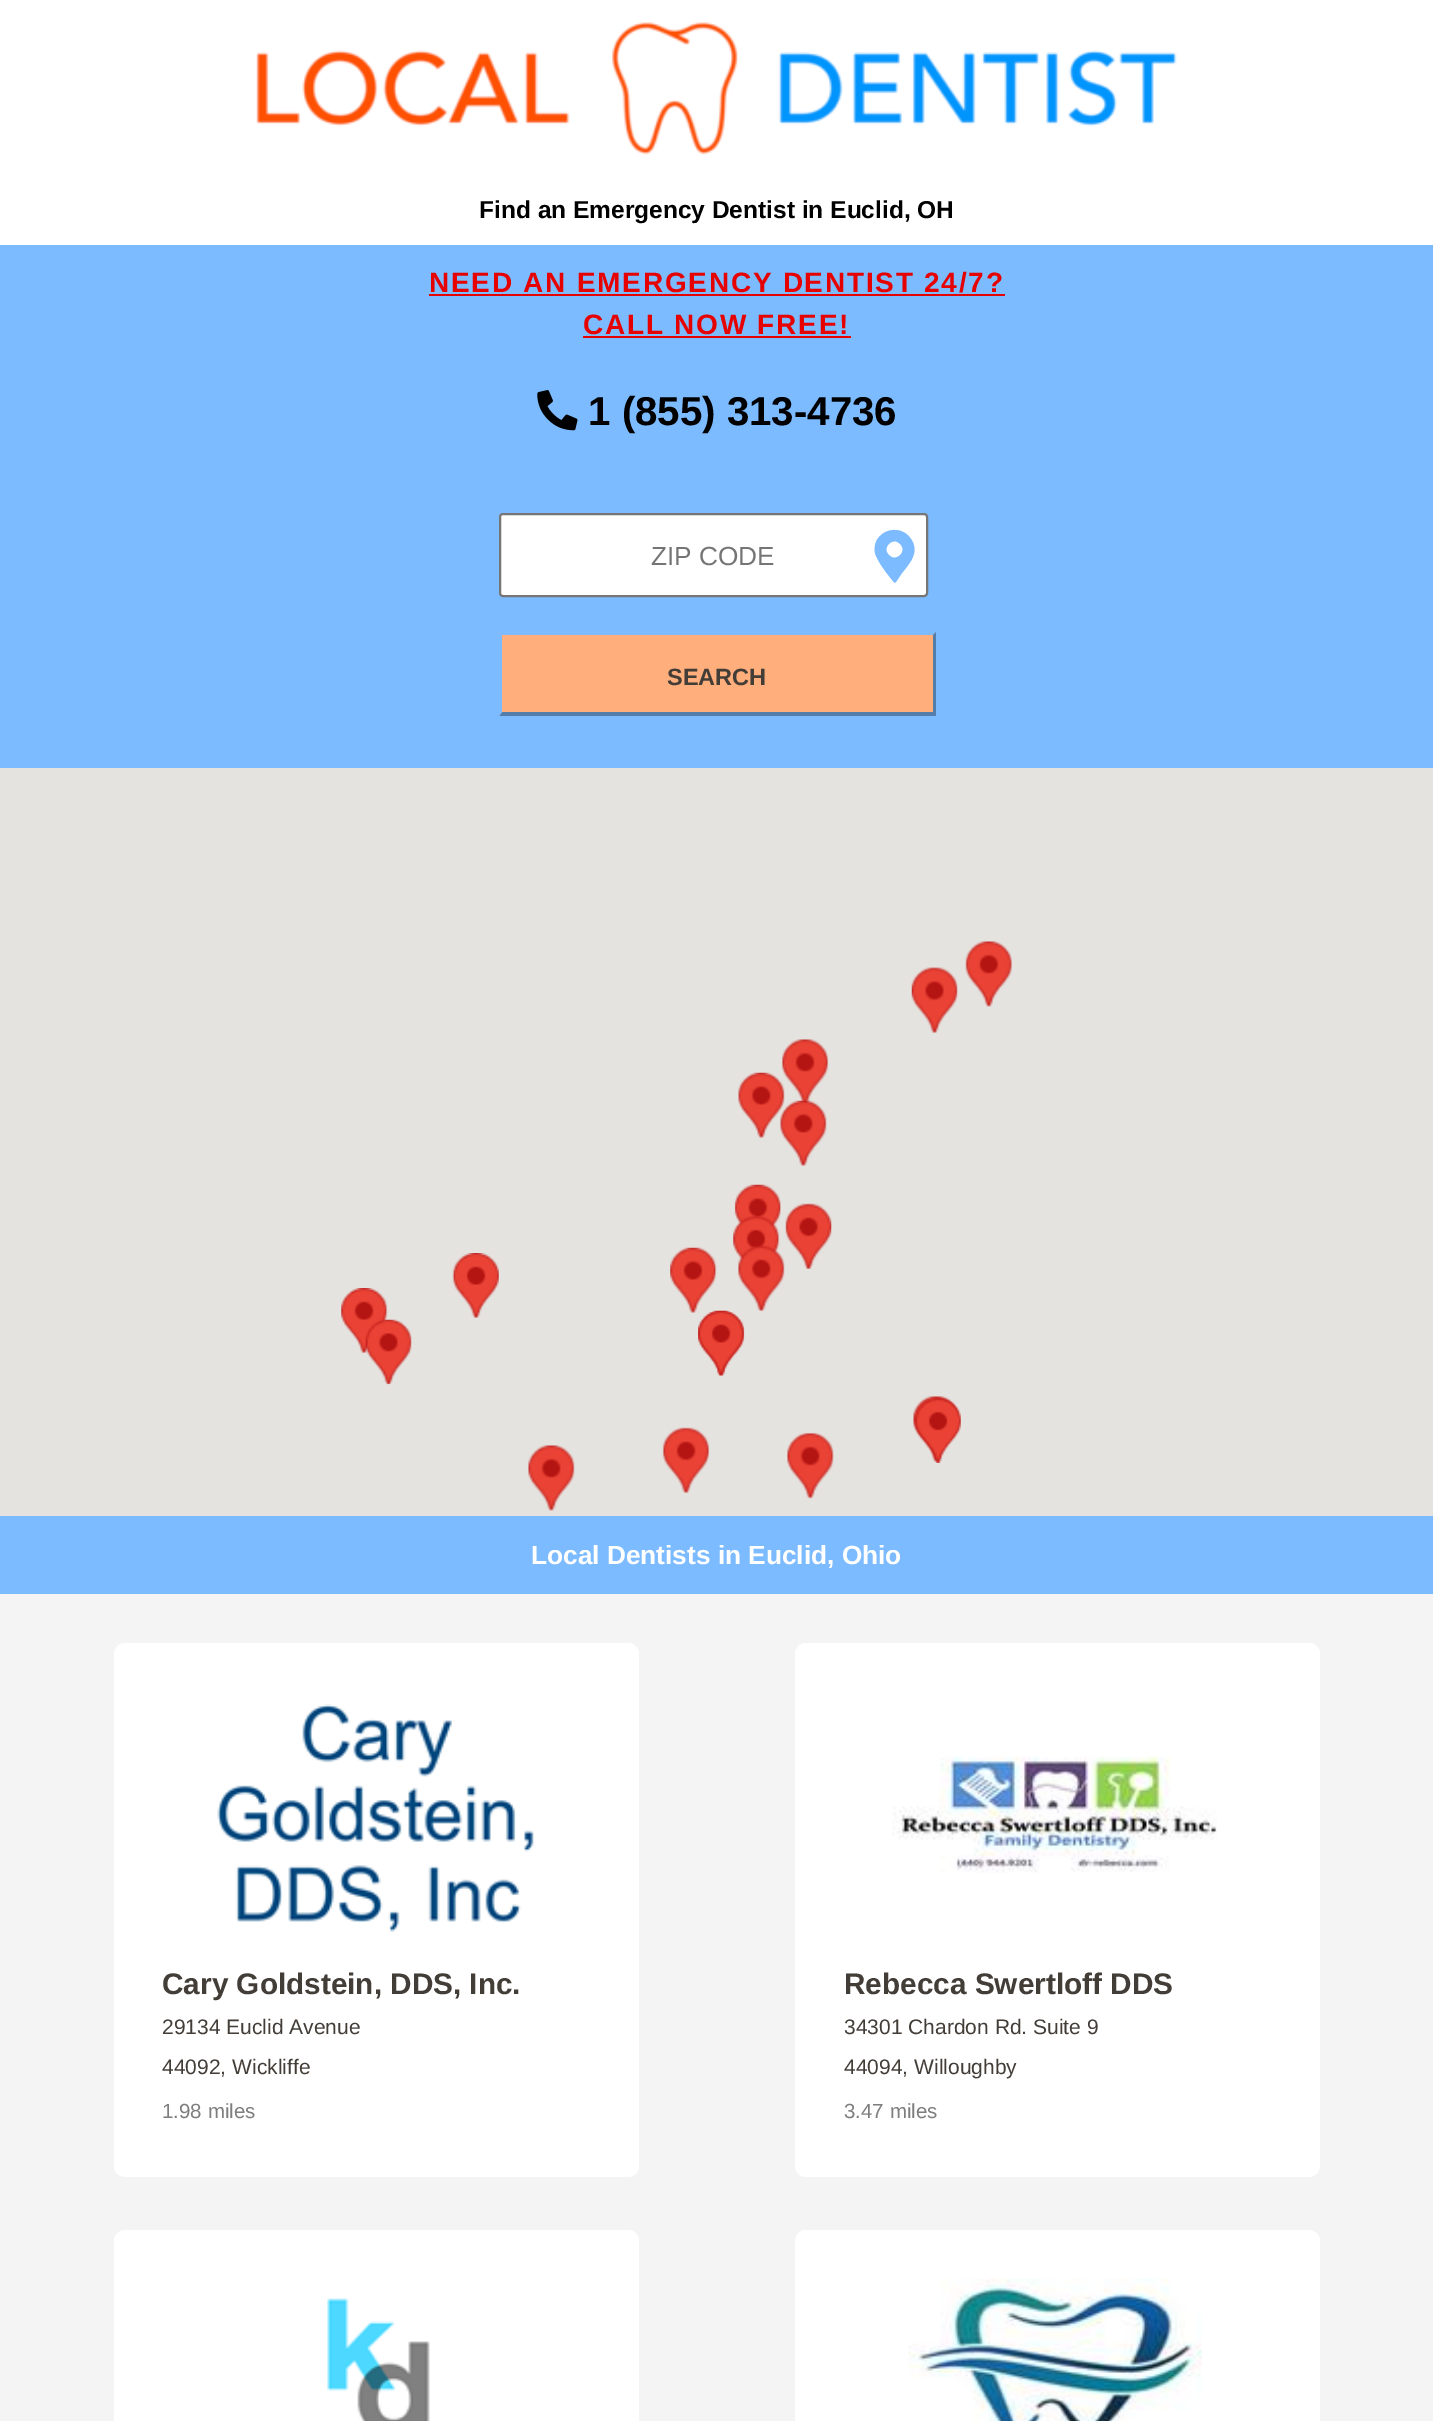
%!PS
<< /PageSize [1433 2421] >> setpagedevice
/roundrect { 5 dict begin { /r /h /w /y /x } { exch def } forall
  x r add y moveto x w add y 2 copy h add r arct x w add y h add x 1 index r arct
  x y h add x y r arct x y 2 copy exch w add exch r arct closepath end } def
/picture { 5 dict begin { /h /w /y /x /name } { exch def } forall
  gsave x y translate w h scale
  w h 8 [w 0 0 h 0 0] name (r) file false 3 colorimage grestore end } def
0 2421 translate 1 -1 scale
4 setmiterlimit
1 setgray
0 0 1433 2421 rectfill
(img1.rgb) 256 22 921 133 picture
/LiberationSans-Bold [24.5 0 0 -24.5 0 0] selectfont
0 setgray
479 218 moveto (Find an Emergency Dentist in Euclid, OH) show
0.486 0.733 1 setrgbcolor
0 245 1433 523 rectfill
/LiberationSans-Bold [28 0 0 -28 0 0] selectfont
0.902 0 0 setrgbcolor
429 292 moveto 1.75 0 (NEED AN EMERGENCY DENTIST 24/7?) ashow
429 294 576 2 rectfill
583 334 moveto 1.75 0 (CALL NOW FREE!) ashow
583 336 268 2 rectfill
(img2.rgb) 537 390 41 41 picture
/LiberationSans-Bold [40.25 0 0 -40.25 0 0] selectfont
0 setgray
588 425 moveto (1 \(855\) 313-4736) show
1 setgray
500 514 427 82 3 roundrect gsave fill grestore
0.463 setgray
2 setlinewidth
stroke
/LiberationSans-Regular [26.25 0 0 -26.25 0 0] selectfont
0.459 setgray
651 565 moveto (ZIP CODE) show
0.486 0.733 1 setrgbcolor
newpath 893 581 moveto 888 575 877 561 875 553 curveto 871 532 899 521 911 539 curveto 920 552 910 563 902 573 curveto 896 582 lineto 895 583 893 582 893 581 curveto closepath 889 555 moveto 896 563 908 551 900 544 curveto 893 536 881 548 889 555 curveto closepath fill
1 0.682 0.486 setrgbcolor
499 632 437 84 rectfill
0.486 0.733 1 setrgbcolor
newpath 499 632 moveto 936 632 lineto 933 635 lineto 502 635 lineto closepath fill
0.325 0.49 0.667 setrgbcolor
newpath 936 632 moveto 936 716 lineto 933 712 lineto 933 635 lineto closepath fill
newpath 936 716 moveto 499 716 lineto 502 712 lineto 933 712 lineto closepath fill
0.486 0.733 1 setrgbcolor
newpath 499 716 moveto 499 632 lineto 502 635 lineto 502 712 lineto closepath fill
/LiberationSans-Bold [23.5 0 0 -23.5 0 0] selectfont
0.263 0.239 0.22 setrgbcolor
667 685 moveto (SEARCH) show
0.898 0.89 0.875 setrgbcolor
0 768 1433 748 rectfill
(img3.rgb) 911 967 47 66 picture
(img4.rgb) 965 941 47 66 picture
(img6.rgb) 781 1039 48 65 picture
(img5.rgb) 738 1072 47 66 picture
(img7.rgb) 780 1100 47 66 picture
(img8.rgb) 734 1184 47 44 picture
(img9.rgb) 785 1203 47 66 picture
(img10.rgb) 733 1216 47 45 picture
(img11.rgb) 341 1288 47 65 picture
(img12.rgb) 452 1253 47 65 picture
(img13.rgb) 670 1247 47 66 picture
(img15.rgb) 738 1245 47 67 picture
(img14.rgb) 698 1310 47 66 picture
(img16.rgb) 365 1319 47 66 picture
(img17.rgb) 698 1310 46 66 picture
(img18.rgb) 913 1396 47 66 picture
(img19.rgb) 528 1445 47 66 picture
(img20.rgb) 662 1427 48 67 picture
(img21.rgb) 787 1432 47 67 picture
(img22.rgb) 915 1398 46 65 picture
0.486 0.733 1 setrgbcolor
0 1516 1433 78 rectfill
/LiberationSans-Bold [26.25 0 0 -26.25 0 0] selectfont
1 setgray
531 1564 moveto (Local Dentists in Euclid, Ohio) show
0.957 setgray
0 1594 1433 827 rectfill
1 setgray
114 1643 525 534 11 roundrect fill
(img23.rgb) 217 1704 317 228 picture
/LiberationSans-Bold [29.75 0 0 -29.75 0 0] selectfont
0.263 0.239 0.22 setrgbcolor
162 1994 moveto (Cary Goldstein, DDS, Inc.) show
/LiberationSans-Regular [21 0 0 -21 0 0] selectfont
162 2034 moveto (29134 Euclid Avenue) show
162 2074 moveto (44092, Wickliffe) show
/LiberationSans-Regular [20.5 0 0 -20.5 0 0] selectfont
0.494 setgray
162 2118 moveto (1.98 miles) show
1 setgray
795 1643 525 534 11 roundrect fill
(img24.rgb) 892 1755 325 118 picture
/LiberationSans-Bold [29.75 0 0 -29.75 0 0] selectfont
0.263 0.239 0.22 setrgbcolor
844 1994 moveto (Rebecca Swertloff DDS) show
/LiberationSans-Regular [21 0 0 -21 0 0] selectfont
844 2034 moveto (34301 Chardon Rd. Suite 9) show
844 2074 moveto (44094, Willoughby) show
/LiberationSans-Regular [20.5 0 0 -20.5 0 0] selectfont
0.494 setgray
844 2118 moveto (3.47 miles) show
1 setgray
114 2230 525 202 11 roundrect fill
(img25.rgb) 327 2298 103 123 picture
795 2230 525 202 11 roundrect fill
(img26.rgb) 908 2278 295 143 picture
showpage
